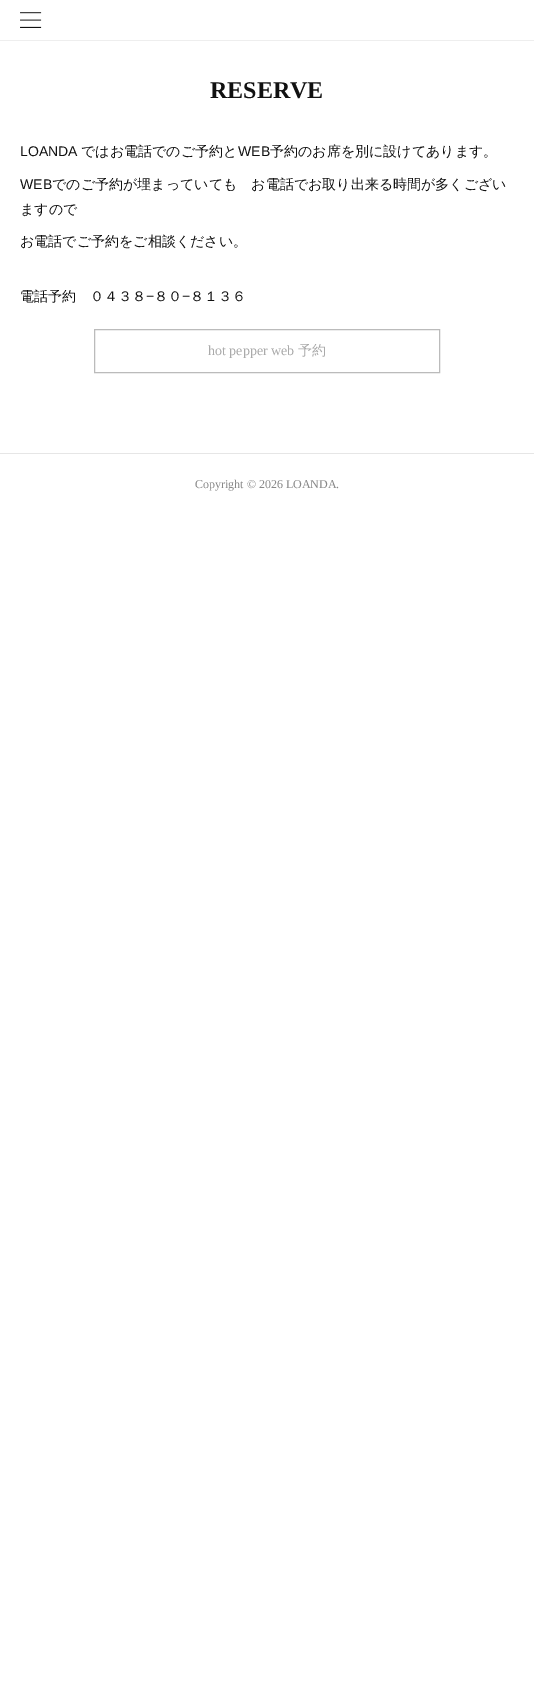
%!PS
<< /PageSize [534 1697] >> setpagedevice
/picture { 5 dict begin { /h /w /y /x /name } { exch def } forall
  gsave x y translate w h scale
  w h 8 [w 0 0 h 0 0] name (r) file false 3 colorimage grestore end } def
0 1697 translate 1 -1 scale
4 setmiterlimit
1 setgray
0 0 534 1697 rectfill
0.933 setgray
0 40 534 1 rectfill
(img1.rgb) 20 12 22 16 picture
/LiberationSerif-Bold [24 0 0 -24 0 0] selectfont
0.067 setgray
210 98 moveto (RESERVE) show
/LiberationSans-Regular [14 0 0 -14 0 0] selectfont
20 156 moveto (LOANDA) show
/WenQuanYiZenHei-Medium [14 0 0 -14 0 0] selectfont
81 156 moveto (ではお電話でのご予約と) show
/LiberationSans-Regular [14 0 0 -14 0 0] selectfont
238 156 moveto (WEB) show
/WenQuanYiZenHei-Medium [14 0 0 -14 0 0] selectfont
270 156 moveto (予約のお席を別に設けてあります。) show
/LiberationSans-Regular [14 0 0 -14 0 0] selectfont
20 189 moveto (WEB) show
/WenQuanYiZenHei-Medium [14 0 0 -14 0 0] selectfont
52 189 moveto (でのご予約が埋まっていても　お電話でお取り出来る時間が多くござい) show
20 214 moveto (ますので) show
20 246 moveto (お電話でご予約をご相談ください。) show
20 301 moveto (電話予約　０４３８) show
/LiberationSans-Regular [14 0 0 -14 0 0] selectfont
146 301 moveto (−) show
/WenQuanYiZenHei-Medium [14 0 0 -14 0 0] selectfont
154 301 moveto (８０) show
/LiberationSans-Regular [14 0 0 -14 0 0] selectfont
182 301 moveto (−) show
/WenQuanYiZenHei-Medium [14 0 0 -14 0 0] selectfont
190 301 moveto (８１３６) show
0.733 setgray
94.5 329.5 345 43 rectstroke
/LiberationSerif-Regular [14 0 0 -14 0 0] selectfont
0.667 setgray
208 355 moveto (hot pepper web) show
/WenQuanYiZenHei-Medium [14 0 0 -14 0 0] selectfont
298 355 moveto (予約) show
0.902 setgray
0 453 534 1 rectfill
/LiberationSerif-Regular [12 0 0 -12 0 0] selectfont
0.533 setgray
195 488 moveto (Copyright © 2026 LOANDA.) show
showpage
